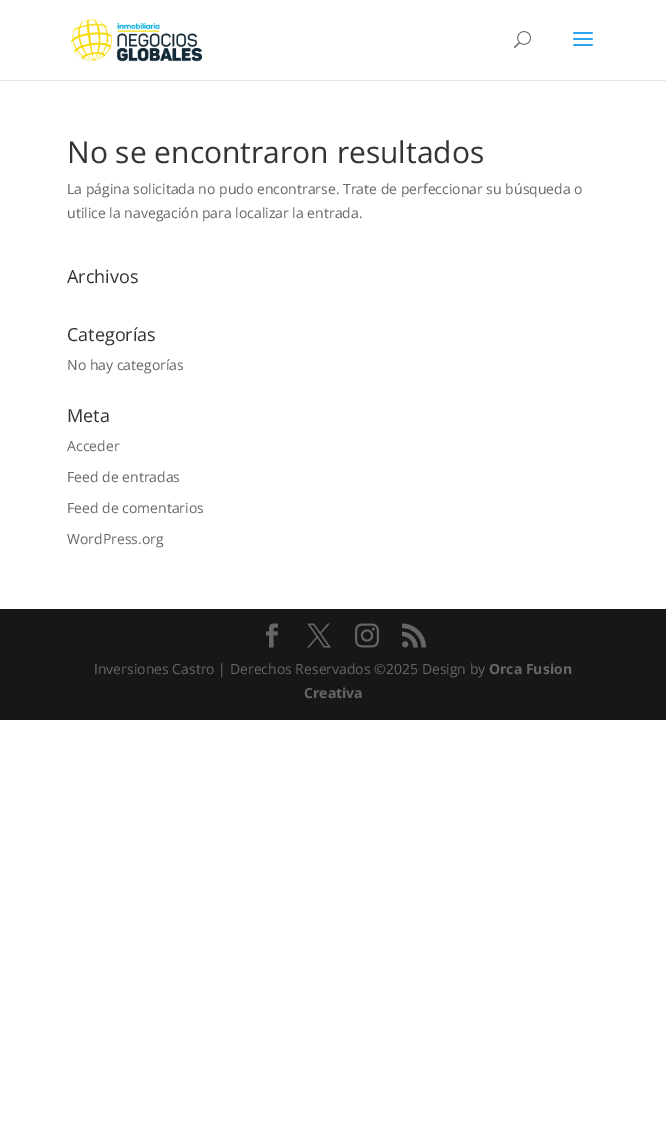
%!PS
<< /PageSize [666 1148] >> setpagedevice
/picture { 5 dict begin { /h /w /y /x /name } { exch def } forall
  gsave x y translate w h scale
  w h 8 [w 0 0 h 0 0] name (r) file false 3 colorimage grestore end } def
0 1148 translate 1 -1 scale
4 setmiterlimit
1 setgray
0 0 666 1148 rectfill
0.902 setgray
0 80 666 1 rectfill
(img1.rgb) 70 19 132 43 picture
(img2.rgb) 514 31 17 18 picture
(img3.rgb) 573 32 20 14 picture
/OpenSans-Regular [30 0 0 -30 0 0] selectfont
0.2 setgray
67 163 moveto (No se encontraron resultados) show
/OpenSans-Regular [14 0 0 -14 0 0] selectfont
0.4 setgray
67 194 moveto (La página solicitada no pudo encontrarse. Trate de perfeccionar su búsqueda o) show
67 218 moveto (utilice la navegación para localizar la entrada.) show
/OpenSans-Regular [18 0 0 -18 0 0] selectfont
0.2 setgray
67 283 moveto (Archivos) show
67 341 moveto (Categorías) show
/OpenSans-Regular [14 0 0 -14 0 0] selectfont
0.4 setgray
67 370 moveto (No hay categorías) show
/OpenSans-Regular [18 0 0 -18 0 0] selectfont
0.2 setgray
67 422 moveto (Meta) show
/OpenSans-Regular [14 0 0 -14 0 0] selectfont
0.4 setgray
67 451 moveto (Acceder) show
67 482 moveto (Feed de entradas) show
67 513 moveto (Feed de comentarios) show
67 544 moveto (WordPress.org) show
0.09 setgray
0 609 666 111 rectfill
(img4.rgb) 266 623 12 25 picture
(img5.rgb) 307 623 24 25 picture
(img6.rgb) 355 623 24 25 picture
(img7.rgb) 402 623 24 25 picture
0.4 setgray
94 674 moveto (Inversiones Castro | Derechos Reservados ©2025 Design by) show
/OpenSans-Bold [14 0 0 -14 0 0] selectfont
489 674 moveto (Orca Fusion) show
304 698 moveto (Creativa) show
showpage
